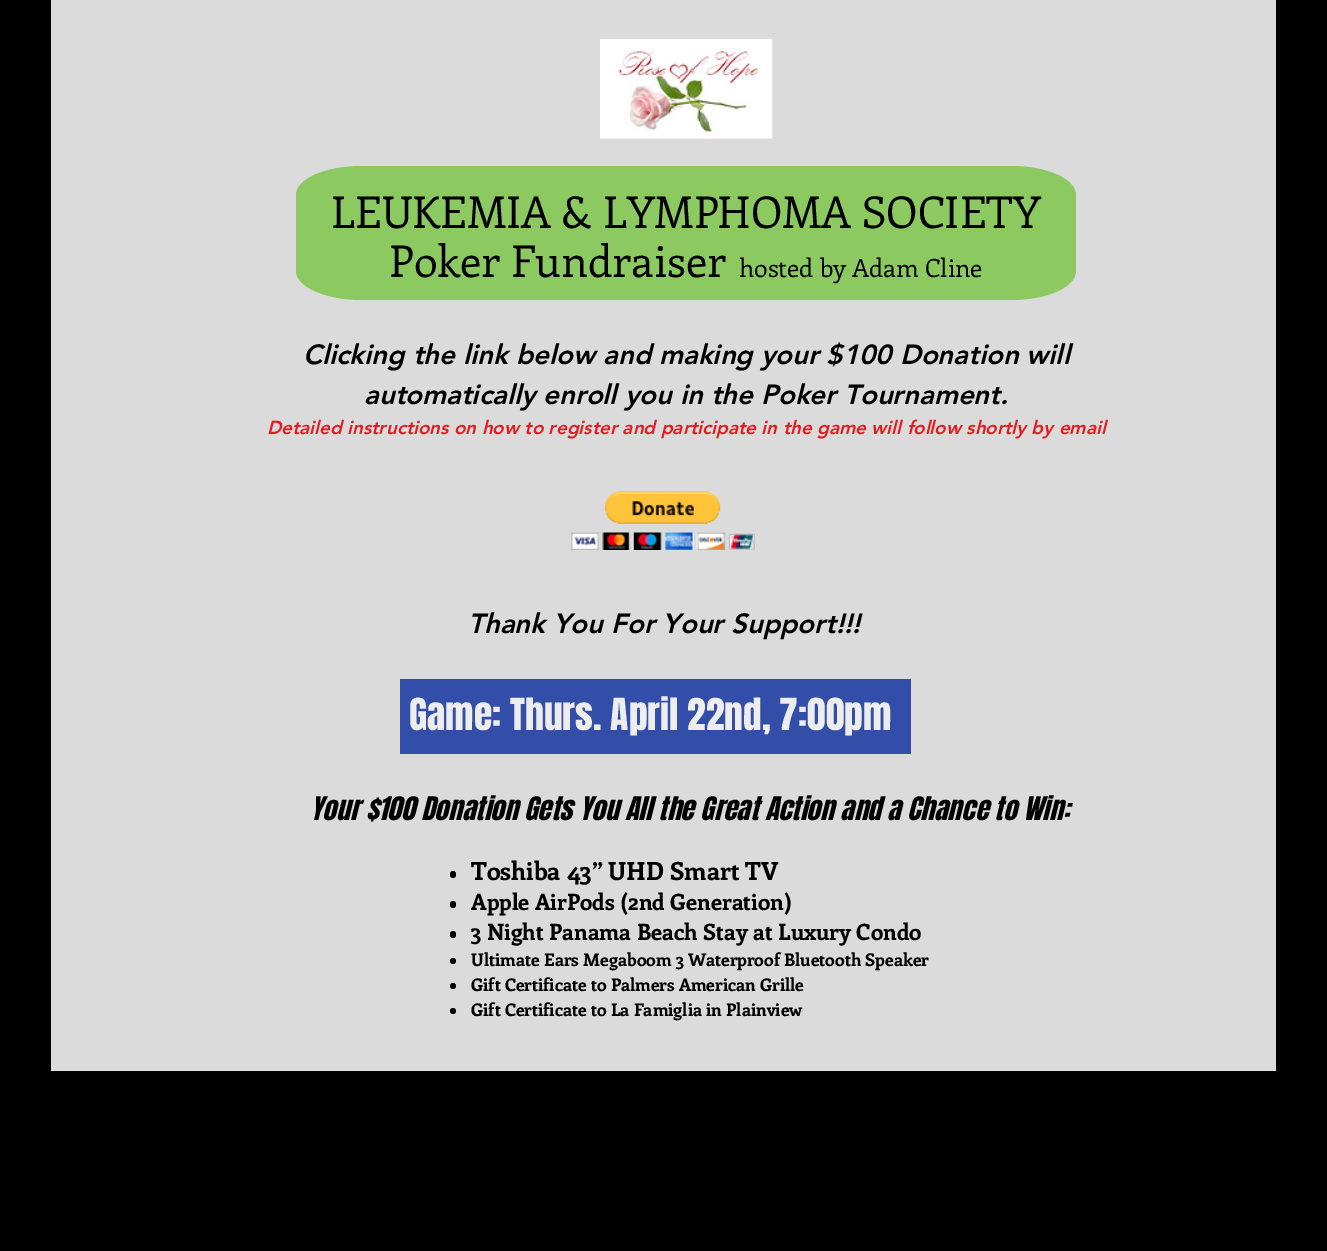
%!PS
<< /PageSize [1327 1251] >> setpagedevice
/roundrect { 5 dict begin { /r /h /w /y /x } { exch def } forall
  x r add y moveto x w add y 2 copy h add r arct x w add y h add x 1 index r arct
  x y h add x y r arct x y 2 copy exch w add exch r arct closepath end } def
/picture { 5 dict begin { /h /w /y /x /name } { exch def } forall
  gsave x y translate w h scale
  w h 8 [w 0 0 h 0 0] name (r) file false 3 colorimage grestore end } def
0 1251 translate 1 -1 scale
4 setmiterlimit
0 setgray
0 0 1327 1251 rectfill
0.859 setgray
51 0 1225 1071 rectfill
(img1.rgb) 600 39 173 100 picture
0.549 0.792 0.38 setrgbcolor
newpath 1011 300 moveto 362 300 lineto 326 300 296 287 296 271 curveto 296 195 lineto 296 179 325 166 362 166 curveto 1011 166 lineto 1047 166 1076 179 1076 195 curveto 1076 271 lineto 1076 287 1047 300 1011 300 curveto closepath fill
/Enriqueta-Regular [43.75 0 0 -43.75 0 0] selectfont
0 setgray
331 228 moveto (LEUKEMIA & LYMPHOMA SOCIETY) show
389 277 moveto (Poker Fundraiser) show
/Enriqueta-Regular [25 0 0 -25 0 0] selectfont
739 277 moveto (hosted by Adam Cline) show
/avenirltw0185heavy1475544-BlackItalic [27.5 0 0 -27.5 0 0] selectfont
303 364 moveto (Clicking the link below and making your $100 Donation will) show
364 404 moveto (automatically enroll you in the Poker Tournament.) show
/avenirltw0185heavy1475544-BlackItalic [18.75 0 0 -18.75 0 0] selectfont
0.886 0.11 0.129 setrgbcolor
267 434 moveto (Detailed instructions on how to register and participate in the game will follow shortly by email) show
(img2.rgb) 571 491 184 59 picture
/avenirltw0185heavy1475544-BlackItalic [27.5 0 0 -27.5 0 0] selectfont
0 setgray
468 633 moveto (Thank You For Your Support!!!) show
0.196 0.306 0.659 setrgbcolor
400 679 511 75 rectfill
/Anton-Regular [37.5 0 0 -37.5 0 0] selectfont
0.929 setgray
409 730 moveto (Game: Thurs. April 22nd, 7:00pm) show
/Anton-Italic [27.5 0 0 -27.5 0 0] selectfont
0 setgray
310 820 moveto (Your $100 Donation Gets You All the Great Action and a Chance to Win:) show
450 871 6 7 3 roundrect fill
/Enriqueta-Bold [25 0 0 -25 0 0] selectfont
471 880 moveto (Toshiba 43” UHD Smart TV) show
450 901 6 7 3 roundrect fill
/Enriqueta-Bold [22.5 0 0 -22.5 0 0] selectfont
471 910 moveto (Apple AirPods \(2nd Generation\)) show
450 931 6 7 3 roundrect fill
471 940 moveto (3 Night Panama Beach Stay at Luxury Condo) show
newpath 453 961 3 0 360 arc closepath fill
/Enriqueta-Bold [17.5 0 0 -17.5 0 0] selectfont
471 966 moveto (Ultimate Ears Megaboom 3 Waterproof Bluetooth Speaker) show
newpath 453 986 3 0 360 arc closepath fill
471 991 moveto (Gift Certificate to Palmers American Grille) show
newpath 453 1011 3 0 360 arc closepath fill
471 1016 moveto (Gift Certificate to La Famiglia in Plainview) show
showpage
